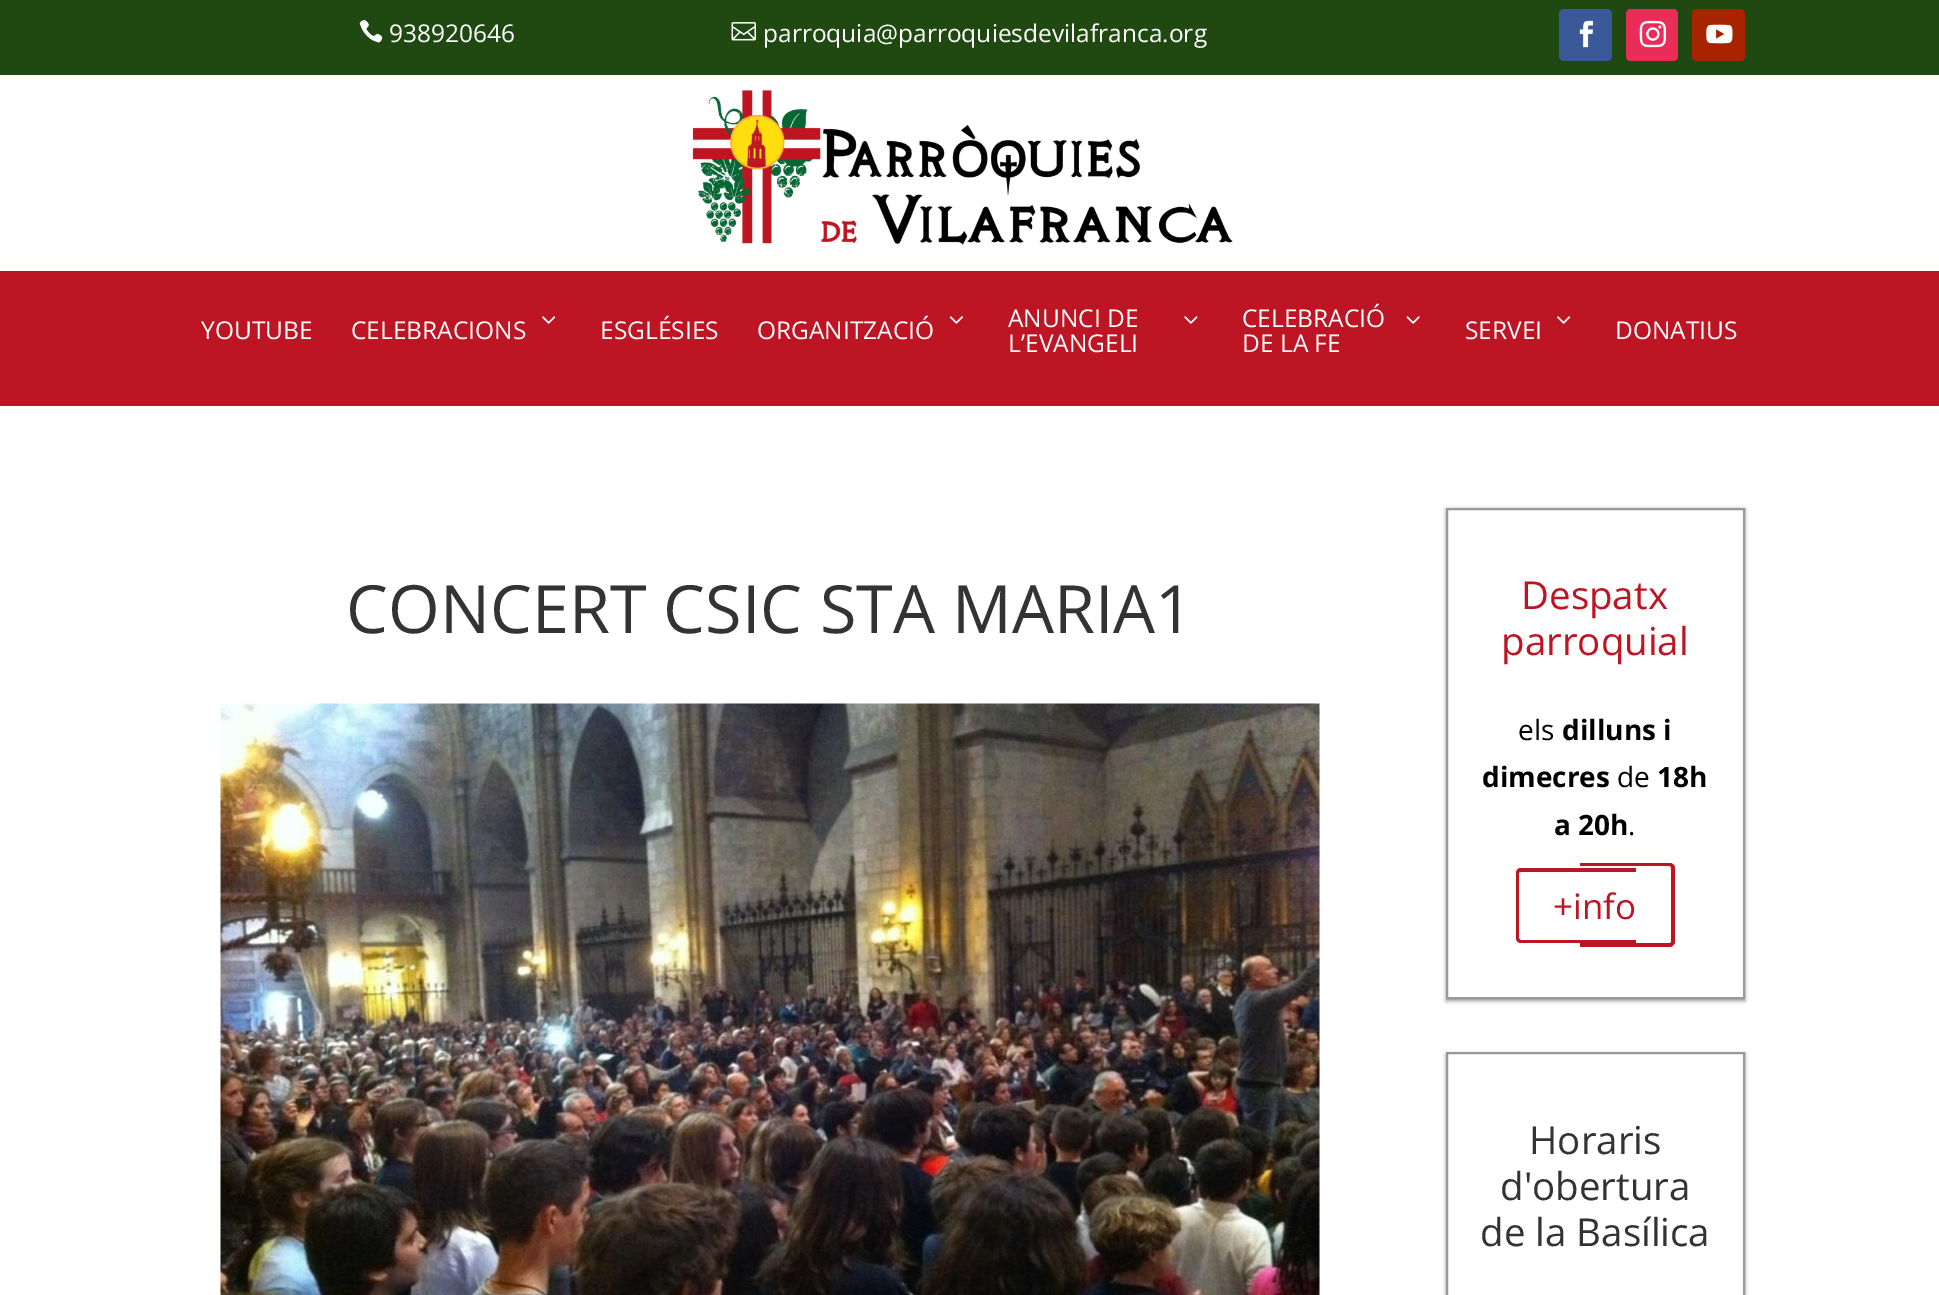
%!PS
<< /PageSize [1939 1295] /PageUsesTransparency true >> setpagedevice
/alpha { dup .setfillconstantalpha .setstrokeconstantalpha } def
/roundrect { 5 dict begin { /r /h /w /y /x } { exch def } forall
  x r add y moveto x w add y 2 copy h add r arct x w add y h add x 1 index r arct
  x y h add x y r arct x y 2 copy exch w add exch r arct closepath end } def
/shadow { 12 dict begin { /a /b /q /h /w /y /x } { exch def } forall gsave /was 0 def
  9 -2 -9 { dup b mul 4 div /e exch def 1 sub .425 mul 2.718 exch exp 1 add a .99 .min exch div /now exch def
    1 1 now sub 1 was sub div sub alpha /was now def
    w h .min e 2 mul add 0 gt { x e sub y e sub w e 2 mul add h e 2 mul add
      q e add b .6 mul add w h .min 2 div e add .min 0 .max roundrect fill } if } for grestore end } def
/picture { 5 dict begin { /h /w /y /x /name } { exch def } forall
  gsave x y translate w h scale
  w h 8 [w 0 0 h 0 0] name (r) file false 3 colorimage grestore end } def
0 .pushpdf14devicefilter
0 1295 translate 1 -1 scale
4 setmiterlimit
1 setgray
0 0 1939 1295 rectfill
0.122 0.286 0.067 setrgbcolor
0 0 1939 75 rectfill
(img1.rgb) 359 20 24 23 picture
/OpenSans-Regular [24.5 0 0 -24.5 0 0] selectfont
1 setgray
389 42 moveto (938920646) show
(img2.rgb) 731 22 25 19 picture
763 42 moveto (parroquia@parroquiesdevilafranca.org) show
0.231 0.349 0.596 setrgbcolor
1559 9 53 52 5 roundrect fill
(img3.rgb) 1579 20 14 28 picture
0.918 0.173 0.349 setrgbcolor
1626 9 52 52 5 roundrect fill
(img4.rgb) 1639 20 27 28 picture
0.659 0.141 0 setrgbcolor
1692 9 53 52 5 roundrect fill
(img5.rgb) 1706 24 27 20 picture
(img6.rgb) 692 90 541 155 picture
0.741 0.082 0.141 setrgbcolor
0 271 1939 135 rectfill
1 setgray
201 339 moveto (YOUTUBE) show
(img7.rgb) 542 316 14 8 picture
351 339 moveto (CELEBRACIONS) show
600 339 moveto (ESGLÉSIES) show
757 339 moveto (ORGANITZACIÓ) show
(img8.rgb) 949 316 14 8 picture
1008 327 moveto (ANUNCI DE) show
(img9.rgb) 1184 316 14 8 picture
1008 352 moveto (L’EVANGELI) show
1242 327 moveto (CELEBRACIÓ) show
(img10.rgb) 1406 316 14 8 picture
1242 352 moveto (DE LA FE) show
(img7.rgb) 1557 316 14 8 picture
1465 339 moveto (SERVEI) show
1615 339 moveto (DONATIUS) show
/OpenSans-Regular [66.5 0 0 -66.5 0 0] selectfont
0.2 setgray
346 633 moveto (CONCERT CSIC STA MARIA1) show
(img11.rgb) 220 703 1100 592 picture
0 setgray
1446 509 299 492 0 2 0.4 shadow
1 setgray
newpath 1447 509 moveto 1744 509 lineto 1744 998 lineto 1447 998 lineto closepath gsave fill grestore
0.6 setgray
2 setlinewidth
stroke
/OpenSans-Regular [38.5 0 0 -38.5 0 0] selectfont
0.741 0.082 0.141 setrgbcolor
1521 609 moveto (Despatx) show
1501 655 moveto (parroquial) show
/OpenSans-Regular [28 0 0 -28 0 0] selectfont
0 setgray
1518 740 moveto (els) show
/OpenSans-Bold [28 0 0 -28 0 0] selectfont
1562 740 moveto (dilluns i) show
1482 787 moveto (dimecres) show
/OpenSans-Regular [28 0 0 -28 0 0] selectfont
1617 787 moveto (de) show
/OpenSans-Bold [28 0 0 -28 0 0] selectfont
1657 787 moveto (18h) show
1554 835 moveto (a 20h) show
/OpenSans-Regular [28 0 0 -28 0 0] selectfont
1628 835 moveto (.) show
0.741 0.082 0.141 setrgbcolor
newpath 1521 868 moveto 1636 868 lineto 1636 943 lineto 1521 943 lineto 1518 943 1516 941 1516 938 curveto 1516 873 lineto 1516 870 1518 868 1521 868 curveto closepath 1521 872 moveto 1636 872 lineto 1636 940 lineto 1521 940 lineto 1520 940 1519 939 1519 938 curveto 1519 873 lineto 1519 872 1520 872 1521 872 curveto closepath eofill
newpath 1580 863 moveto 1670 863 lineto 1672 863 1675 865 1675 868 curveto 1675 942 lineto 1675 944 1672 947 1670 947 curveto 1580 947 lineto closepath 1580 866 moveto 1670 866 lineto 1670 866 1671 867 1671 868 curveto 1671 942 lineto 1671 942 1670 943 1670 943 curveto 1580 943 lineto closepath eofill
/OpenSans-Regular [35 0 0 -35 0 0] selectfont
1553 919 moveto (+info) show
0 setgray
1446 1054 299 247 0 2 0.4 shadow
1 setgray
newpath 1447 1053 moveto 1744 1053 lineto 1744 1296 lineto 1447 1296 lineto closepath gsave fill grestore
0.6 setgray
stroke
/OpenSans-Regular [38.5 0 0 -38.5 0 0] selectfont
0.2 setgray
1529 1154 moveto (Horaris) show
1500 1200 moveto (d'obertura) show
1480 1246 moveto (de la Basílica) show
.poppdf14devicefilter showpage
